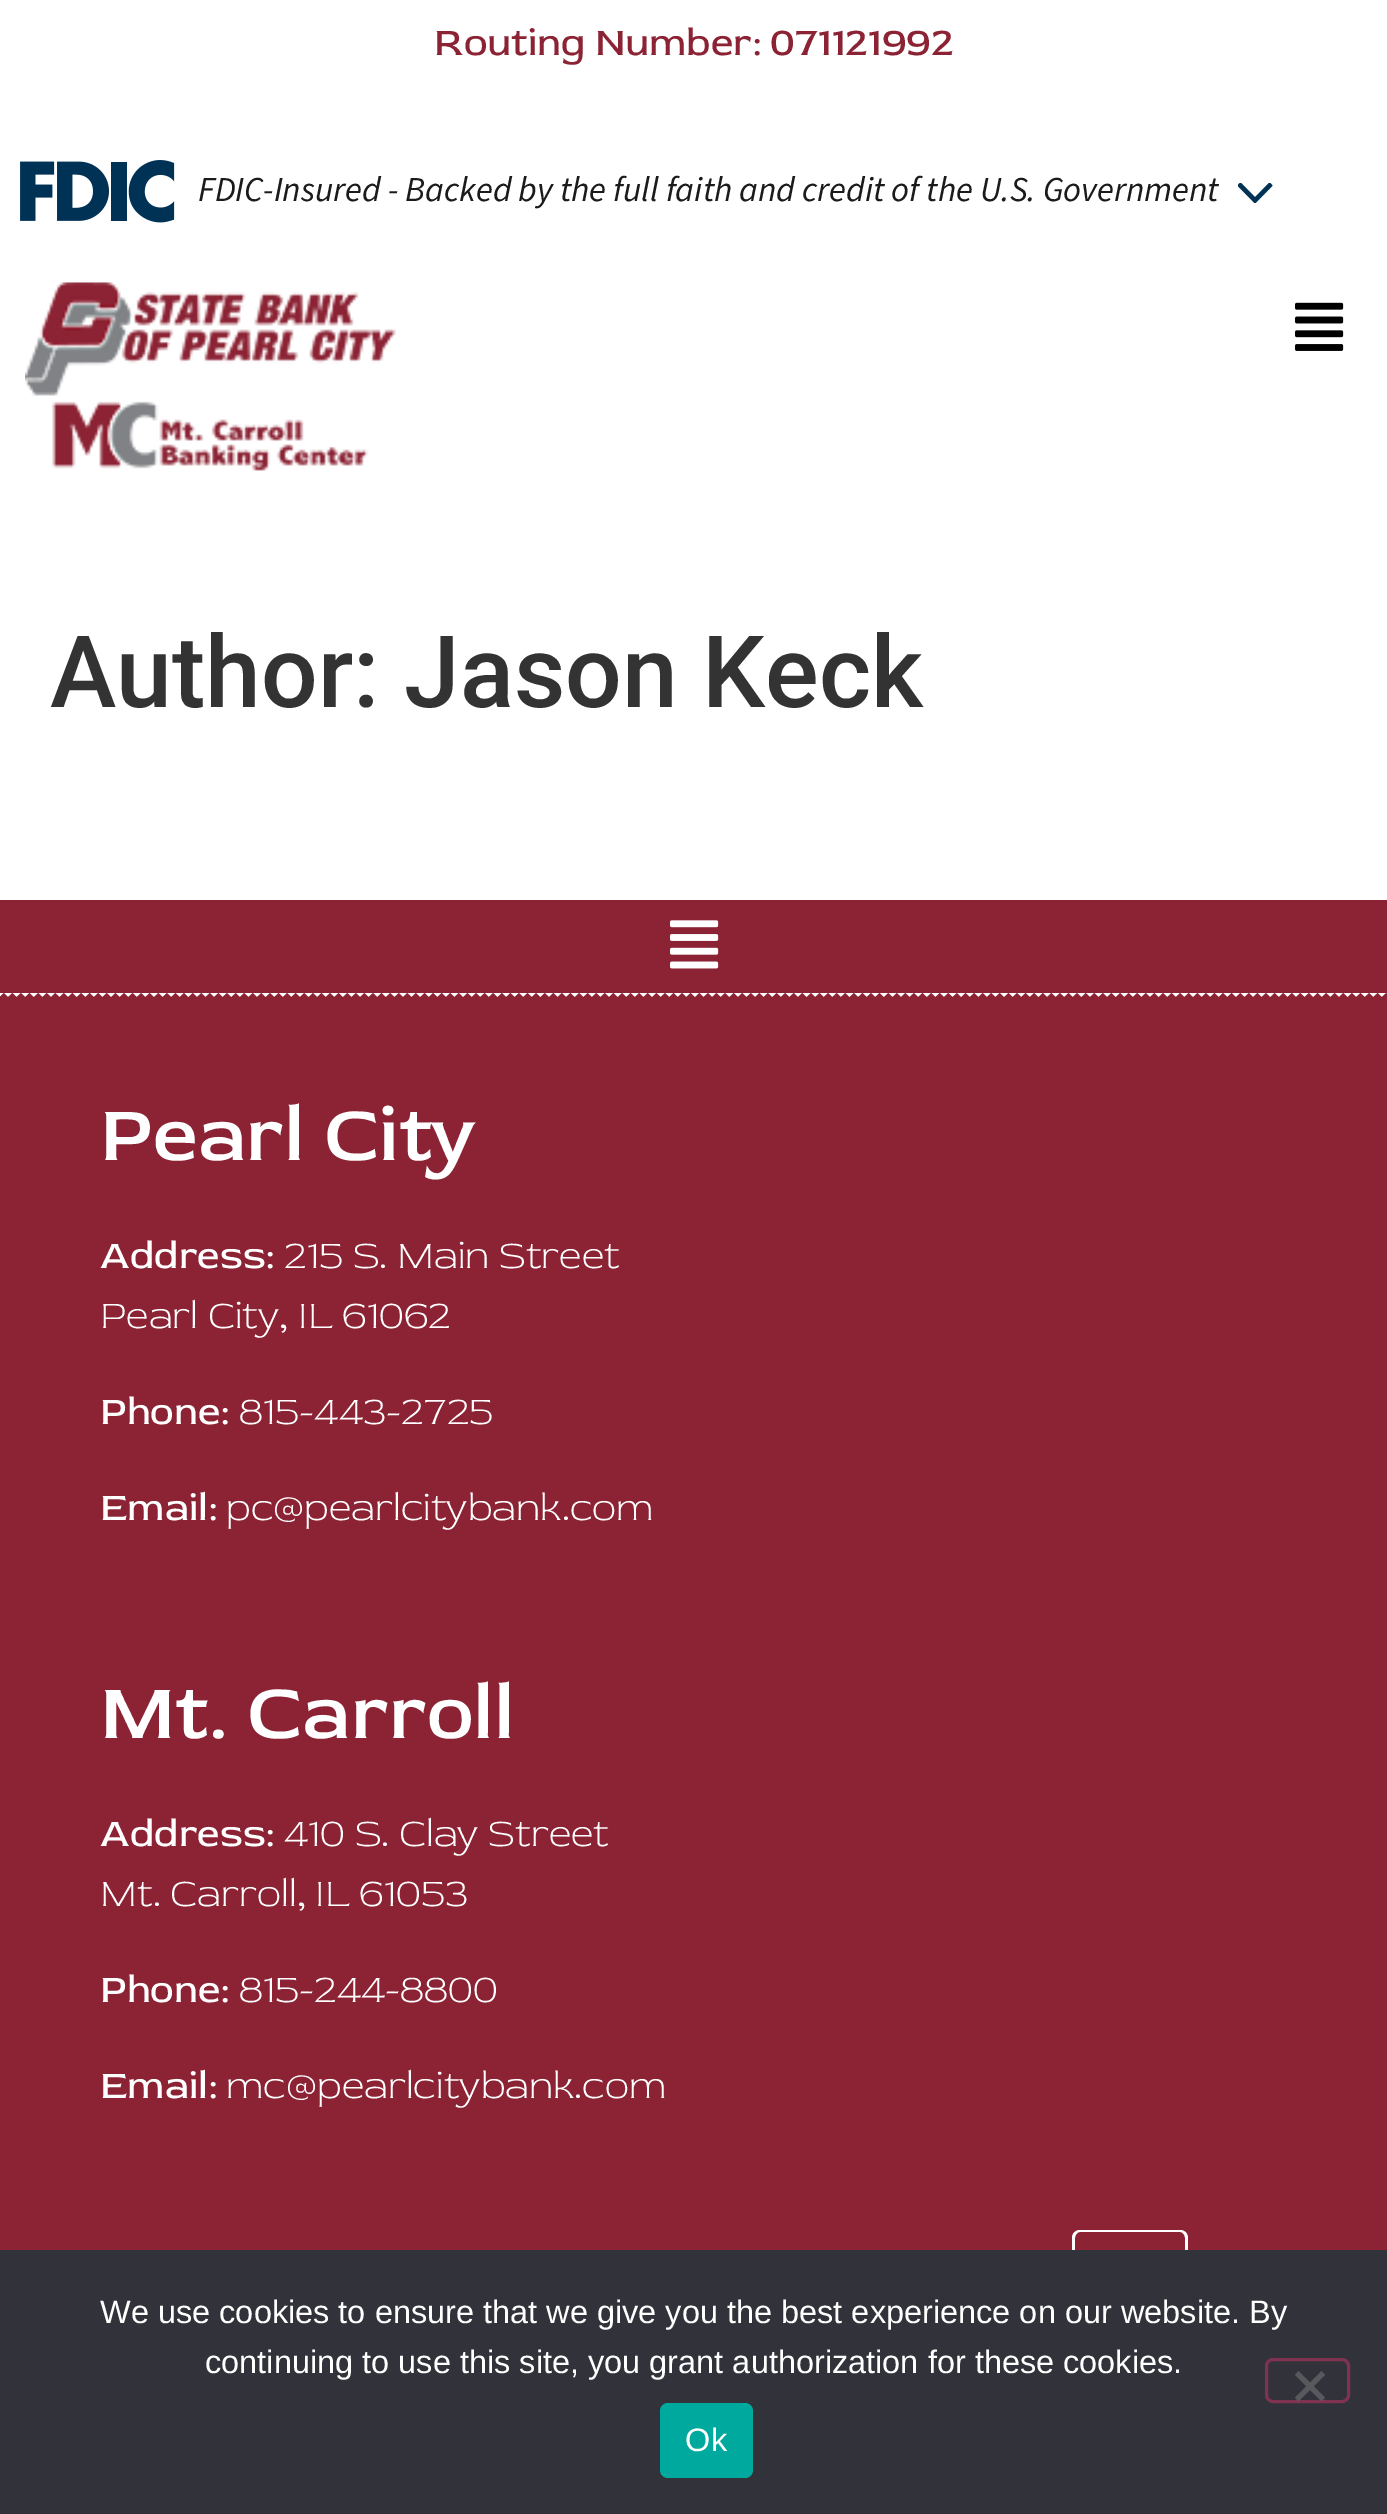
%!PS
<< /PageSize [1387 2514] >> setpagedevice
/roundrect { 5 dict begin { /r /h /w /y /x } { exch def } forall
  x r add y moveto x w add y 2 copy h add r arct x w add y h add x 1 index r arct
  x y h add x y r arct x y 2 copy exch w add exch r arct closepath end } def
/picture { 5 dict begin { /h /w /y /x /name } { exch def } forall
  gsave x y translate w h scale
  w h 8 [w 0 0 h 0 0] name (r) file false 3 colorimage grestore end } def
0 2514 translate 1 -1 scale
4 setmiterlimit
1 setgray
0 0 1387 2514 rectfill
/RedRose-Regular [40 0 0 -40 0 0] selectfont
0.545 0.137 0.204 setrgbcolor
434 55 moveto (Routing Number: 071121992) show
(img1.rgb) 20 160 155 63 picture
/SourceSans3-Italic [35 0 0 -35 0 0] selectfont
0.106 setgray
198 201 moveto (FDIC-Insured - Backed by the full faith and credit of the U.S. Government) show
(img2.rgb) 1238 183 35 20 picture
(img3.rgb) 25 282 371 189 picture
(img4.rgb) 1295 302 49 49 picture
/Roboto-Medium [100 0 0 -100 0 0] selectfont
0.2 setgray
50 707 moveto (Author: Jason Keck) show
0.545 0.137 0.204 setrgbcolor
0 900 1387 1350 rectfill
(img5.rgb) 670 920 49 49 picture
(img6.rgb) 0 993 1387 4 picture
/RedRose-Medium [80 0 0 -80 0 0] selectfont
1 setgray
100 1160 moveto (Pearl City) show
/RedRose-Regular [40 0 0 -40 0 0] selectfont
100 1268 moveto (Address:) show
/RedRose-Light [40 0 0 -40 0 0] selectfont
284 1268 moveto (215 S. Main Street) show
100 1328 moveto (Pearl City, IL 61062) show
/RedRose-Regular [40 0 0 -40 0 0] selectfont
100 1424 moveto (Phone:) show
/RedRose-Light [40 0 0 -40 0 0] selectfont
239 1424 moveto (815-443-2725) show
/RedRose-Regular [40 0 0 -40 0 0] selectfont
100 1520 moveto (Email:) show
/RedRose-Light [40 0 0 -40 0 0] selectfont
226 1520 moveto (pc@pearlcitybank.com) show
/RedRose-Medium [80 0 0 -80 0 0] selectfont
100 1738 moveto (Mt. Carroll) show
/RedRose-Regular [40 0 0 -40 0 0] selectfont
100 1846 moveto (Address:) show
/RedRose-Light [40 0 0 -40 0 0] selectfont
284 1846 moveto (410 S. Clay Street) show
100 1906 moveto (Mt. Carroll, IL 61053) show
/RedRose-Regular [40 0 0 -40 0 0] selectfont
100 2002 moveto (Phone:) show
/RedRose-Light [40 0 0 -40 0 0] selectfont
239 2002 moveto (815-244-8800) show
/RedRose-Regular [40 0 0 -40 0 0] selectfont
100 2098 moveto (Email:) show
/RedRose-Light [40 0 0 -40 0 0] selectfont
226 2098 moveto (mc@pearlcitybank.com) show
0.545 0.137 0.204 setrgbcolor
1073 2230 115 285 8 roundrect fill
1 setgray
newpath 1080 2230 moveto 1180 2230 lineto 1184 2230 1188 2233 1188 2238 curveto 1188 2508 lineto 1188 2512 1184 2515 1180 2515 curveto 1080 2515 lineto 1076 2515 1072 2512 1072 2508 curveto 1072 2238 lineto 1072 2233 1076 2230 1080 2230 curveto closepath 1080 2232 moveto 1180 2232 lineto 1183 2232 1185 2235 1185 2238 curveto 1185 2508 lineto 1185 2512 1183 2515 1180 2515 curveto 1080 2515 lineto 1077 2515 1075 2512 1075 2508 curveto 1075 2238 lineto 1075 2235 1077 2232 1080 2232 curveto closepath eofill
0.196 0.196 0.227 setrgbcolor
0 2250 1387 264 rectfill
/LiberationSans-Regular [32.5 0 0 -32.5 0 0] selectfont
1 setgray
100 2323 moveto (We use cookies to ensure that we give you the best experience on our website. By) show
205 2373 moveto (continuing to use this site, you grant authorization for these cookies.) show
0.498 0.2 0.314 setrgbcolor
3 setlinewidth
1266.5 2359.5 82 42 6.5 roundrect stroke
0.349 0.349 0.365 setrgbcolor
newpath 1321.5 2371 moveto 1325 2375 lineto 1298.5 2401.5 lineto 1295 2397.5 lineto closepath fill
newpath 1295 2375 moveto 1298.5 2371 lineto 1325 2397.5 lineto 1321.5 2401.5 lineto closepath fill
0 0.663 0.616 setrgbcolor
660 2403 93 75 8 roundrect fill
1 setgray
685 2451 moveto 1 0 (Ok) ashow
showpage
